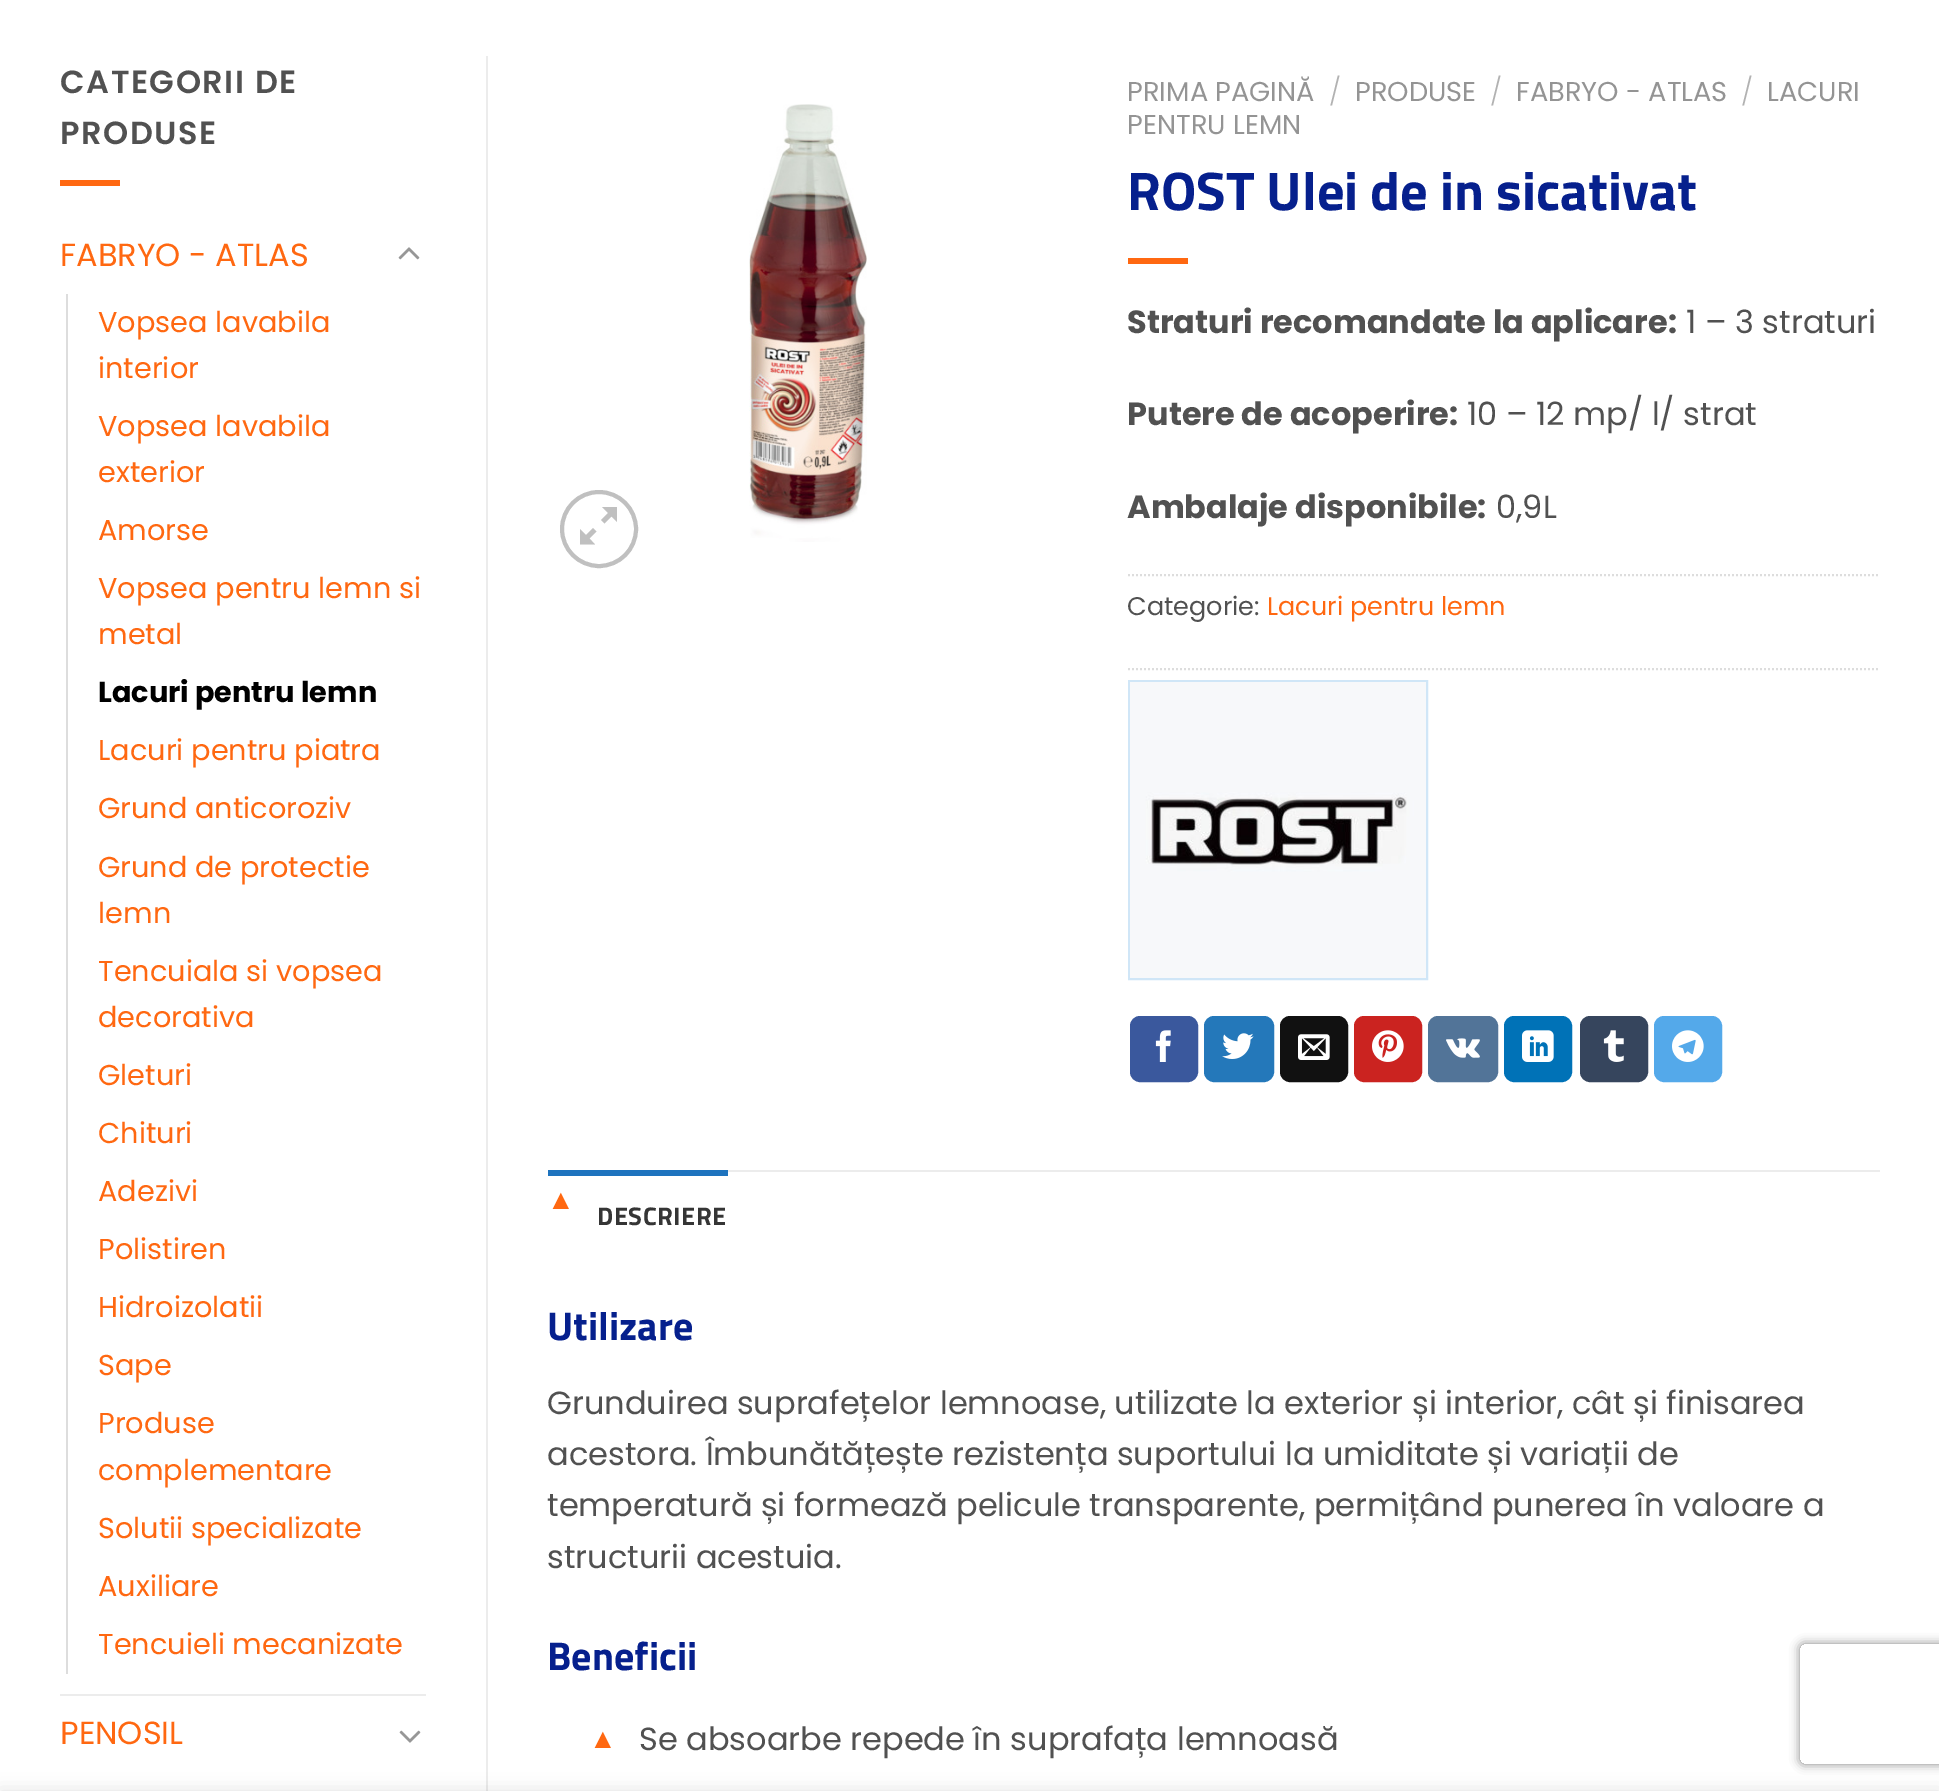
%!PS
<< /PageSize [1939 1791] /PageUsesTransparency true >> setpagedevice
/alpha { dup .setfillconstantalpha .setstrokeconstantalpha } def
/roundrect { 5 dict begin { /r /h /w /y /x } { exch def } forall
  x r add y moveto x w add y 2 copy h add r arct x w add y h add x 1 index r arct
  x y h add x y r arct x y 2 copy exch w add exch r arct closepath end } def
/shadow { 12 dict begin { /a /b /q /h /w /y /x } { exch def } forall gsave /was 0 def
  9 -2 -9 { dup b mul 4 div /e exch def 1 sub .425 mul 2.718 exch exp 1 add a .99 .min exch div /now exch def
    1 1 now sub 1 was sub div sub alpha /was now def
    w h .min e 2 mul add 0 gt { x e sub y e sub w e 2 mul add h e 2 mul add
      q e add b .6 mul add w h .min 2 div e add .min 0 .max roundrect fill } if } for grestore end } def
/picture { 5 dict begin { /h /w /y /x /name } { exch def } forall
  gsave x y translate w h scale
  w h 8 [w 0 0 h 0 0] name (r) file false 3 colorimage grestore end } def
0 .pushpdf14devicefilter
0 1791 translate 1 -1 scale
4 setmiterlimit
1 setgray
0 0 1939 1791 rectfill
/Poppins-SemiBold [32 0 0 -32 0 0] selectfont
0.318 setgray
60 93 moveto 1.6 0 (CATEGORII DE) ashow
60 144 moveto 1.6 0 (PRODUSE) ashow
1 0.408 0.067 setrgbcolor
60 180 60 6 rectfill
/Poppins-Regular [32 0 0 -32 0 0] selectfont
60 266 moveto (FABRYO - ATLAS) show
(img1.rgb) 398 247 22 13 picture
0.867 setgray
66 294 2 1380 rectfill
/Poppins-Regular [28.75 0 0 -28.75 0 0] selectfont
1 0.408 0.067 setrgbcolor
98 332 moveto (Vopsea lavabila) show
98 378 moveto (interior) show
98 436 moveto (Vopsea lavabila) show
98 482 moveto (exterior) show
98 540 moveto (Amorse) show
98 598 moveto (Vopsea pentru lemn si) show
98 644 moveto (metal) show
/Poppins-Bold [28.75 0 0 -28.75 0 0] selectfont
0 setgray
98 702 moveto (Lacuri pentru lemn) show
/Poppins-Regular [28.75 0 0 -28.75 0 0] selectfont
1 0.408 0.067 setrgbcolor
98 760 moveto (Lacuri pentru piatra) show
98 818 moveto (Grund anticoroziv) show
98 877 moveto (Grund de protectie) show
98 923 moveto (lemn) show
98 981 moveto (Tencuiala si vopsea) show
98 1027 moveto (decorativa) show
98 1085 moveto (Gleturi) show
98 1143 moveto (Chituri) show
98 1201 moveto (Adezivi) show
98 1259 moveto (Polistiren) show
98 1317 moveto (Hidroizolatii) show
98 1375 moveto (Sape) show
98 1433 moveto (Produse) show
98 1480 moveto (complementare) show
98 1538 moveto (Solutii specializate) show
98 1596 moveto (Auxiliare) show
98 1654 moveto (Tencuieli mecanizate) show
0.925 setgray
60 1694 366 2 rectfill
/Poppins-Regular [32 0 0 -32 0 0] selectfont
1 0.408 0.067 setrgbcolor
60 1744 moveto (PENOSIL) show
(img2.rgb) 399 1730 22 13 picture
0.925 setgray
486 56 2 1735 rectfill
0.753 setgray
4 setlinewidth
newpath 599 529 37 0 360 arc closepath stroke
newpath 617 507 moveto 617 522 lineto 611.5 516.5 lineto 604.5 523.5 lineto 601 520 lineto 608 513 lineto 602 507 lineto closepath 596.5 531.5 moveto 589.5 538.5 lineto 595 544.5 lineto 580 544.5 lineto 580 529 lineto 586 535 lineto 593 528 lineto closepath fill
(img3.rgb) 749 104 118 438 picture
/Poppins-Regular [27.25 0 0 -27.25 0 0] selectfont
0.58 setgray
1127 101 moveto (PRIMA PAGINĂ) show
/Poppins-Light [27.25 0 0 -27.25 0 0] selectfont
0.698 setgray
1329 101 moveto (/) show
/Poppins-Regular [27.25 0 0 -27.25 0 0] selectfont
0.58 setgray
1355 101 moveto (PRODUSE) show
/Poppins-Light [27.25 0 0 -27.25 0 0] selectfont
0.698 setgray
1490 101 moveto (/) show
/Poppins-Regular [27.25 0 0 -27.25 0 0] selectfont
0.58 setgray
1516 101 moveto (FABRYO - ATLAS) show
/Poppins-Light [27.25 0 0 -27.25 0 0] selectfont
0.698 setgray
1741 101 moveto (/) show
/Poppins-Regular [27.25 0 0 -27.25 0 0] selectfont
0.58 setgray
1767 101 moveto (LACURI) show
1127 134 moveto (PENTRU LEMN) show
/TitilliumWeb-Bold [54.4 0 0 -54.4 0 0] selectfont
0.024 0.125 0.553 setrgbcolor
1127 210 moveto (ROST Ulei de in sicativat) show
1 0.408 0.067 setrgbcolor
1128 258 60 6 rectfill
/Poppins-Bold [32 0 0 -32 0 0] selectfont
0.318 setgray
1127 333 moveto (Straturi recomandate la aplicare:) show
/Poppins-Regular [32 0 0 -32 0 0] selectfont
1686 333 moveto (1 – 3 straturi) show
/Poppins-Bold [32 0 0 -32 0 0] selectfont
1127 425 moveto (Putere de acoperire:) show
/Poppins-Regular [32 0 0 -32 0 0] selectfont
1467 425 moveto (10 – 12 mp/ l/ strat) show
/Poppins-Bold [32 0 0 -32 0 0] selectfont
1127 518 moveto (Ambalaje disponibile:) show
/Poppins-Regular [32 0 0 -32 0 0] selectfont
1496 518 moveto (0,9L) show
0.867 setgray
2 setlinewidth
[2 2] 0 setdash
newpath 1128 575 moveto 1880 575 lineto stroke
/Poppins-Regular [25.5 0 0 -25.5 0 0] selectfont
0.318 setgray
1127 615 moveto (Categorie:) show
1 0.408 0.067 setrgbcolor
1267 615 moveto (Lacuri pentru lemn) show
0.867 setgray
newpath 1128 669 moveto 1880 669 lineto stroke
0.816 0.902 0.969 setrgbcolor
[] 0 setdash
1129 681 298 298 rectstroke
(img4.rgb) 1130 682 296 296 picture
0.227 0.345 0.616 setrgbcolor
1131 1017 66 64 9 roundrect gsave fill grestore
stroke
(img5.rgb) 1155 1030 16 32 picture
0.141 0.471 0.729 setrgbcolor
1205 1017 68 64 9 roundrect gsave fill grestore
stroke
(img6.rgb) 1222 1033 32 26 picture
0.067 setgray
1281 1017 66 64 9 roundrect gsave fill grestore
stroke
(img7.rgb) 1298 1034 32 26 picture
0.796 0.137 0.125 setrgbcolor
1355 1017 66 64 9 roundrect gsave fill grestore
stroke
(img8.rgb) 1372 1030 32 32 picture
0.322 0.455 0.596 setrgbcolor
1429 1017 68 64 9 roundrect gsave fill grestore
stroke
(img9.rgb) 1446 1038 34 20 picture
0 0.447 0.718 setrgbcolor
1505 1017 66 64 9 roundrect gsave fill grestore
stroke
(img10.rgb) 1522 1030 32 32 picture
0.212 0.271 0.365 setrgbcolor
1581 1017 66 64 9 roundrect gsave fill grestore
stroke
(img11.rgb) 1603 1030 21 32 picture
0.329 0.663 0.918 setrgbcolor
1655 1017 66 64 9 roundrect gsave fill grestore
stroke
(img12.rgb) 1672 1030 32 32 picture
0.925 setgray
728 1170 1152 2 rectfill
/LiberationSerif-Regular [28 0 0 -28 0 0] selectfont
1 0.408 0.067 setrgbcolor
547 1209 moveto (▲) show
0.118 0.451 0.745 setrgbcolor
548 1170 180 6 rectfill
/TitilliumWeb-Bold [25.5 0 0 -25.5 0 0] selectfont
0.208 setgray
597 1225 moveto 0.5 0 (DESCRIERE) ashow
/TitilliumWeb-Bold [40 0 0 -40 0 0] selectfont
0.024 0.125 0.553 setrgbcolor
547 1340 moveto (Utilizare) show
/Poppins-Regular [32 0 0 -32 0 0] selectfont
0.318 setgray
547 1414 moveto (Grunduirea suprafețelor lemnoase, utilizate la exterior și interior, cât și finisarea) show
547 1465 moveto (acestora. Îmbunătățește rezistența suportului la umiditate și variații de) show
547 1516 moveto (temperatură și formează pelicule transparente, permițând punerea în valoare a) show
547 1568 moveto (structurii acestuia.) show
/TitilliumWeb-Bold [40 0 0 -40 0 0] selectfont
0.024 0.125 0.553 setrgbcolor
547 1670 moveto (Beneficii) show
/LiberationSerif-Regular [28 0 0 -28 0 0] selectfont
1 0.408 0.067 setrgbcolor
589 1748 moveto (▲) show
/Poppins-Regular [32 0 0 -32 0 0] selectfont
0.318 setgray
639 1750 moveto (Se absoarbe repede în suprafața lemnoasă) show
gsave
newpath 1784 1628 moveto 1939 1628 lineto 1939 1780 lineto 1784 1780 lineto closepath 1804 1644 moveto 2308 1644 lineto 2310 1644 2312 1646 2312 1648 curveto 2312 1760 lineto 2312 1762 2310 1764 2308 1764 curveto 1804 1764 lineto 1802 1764 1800 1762 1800 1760 curveto 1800 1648 lineto 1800 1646 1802 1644 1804 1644 curveto closepath eoclip newpath
0.502 setgray
1800 1644 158 120 4 5 1 shadow
grestore
0 setgray
0 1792 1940 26 0 9 0.14 shadow
.poppdf14devicefilter showpage
